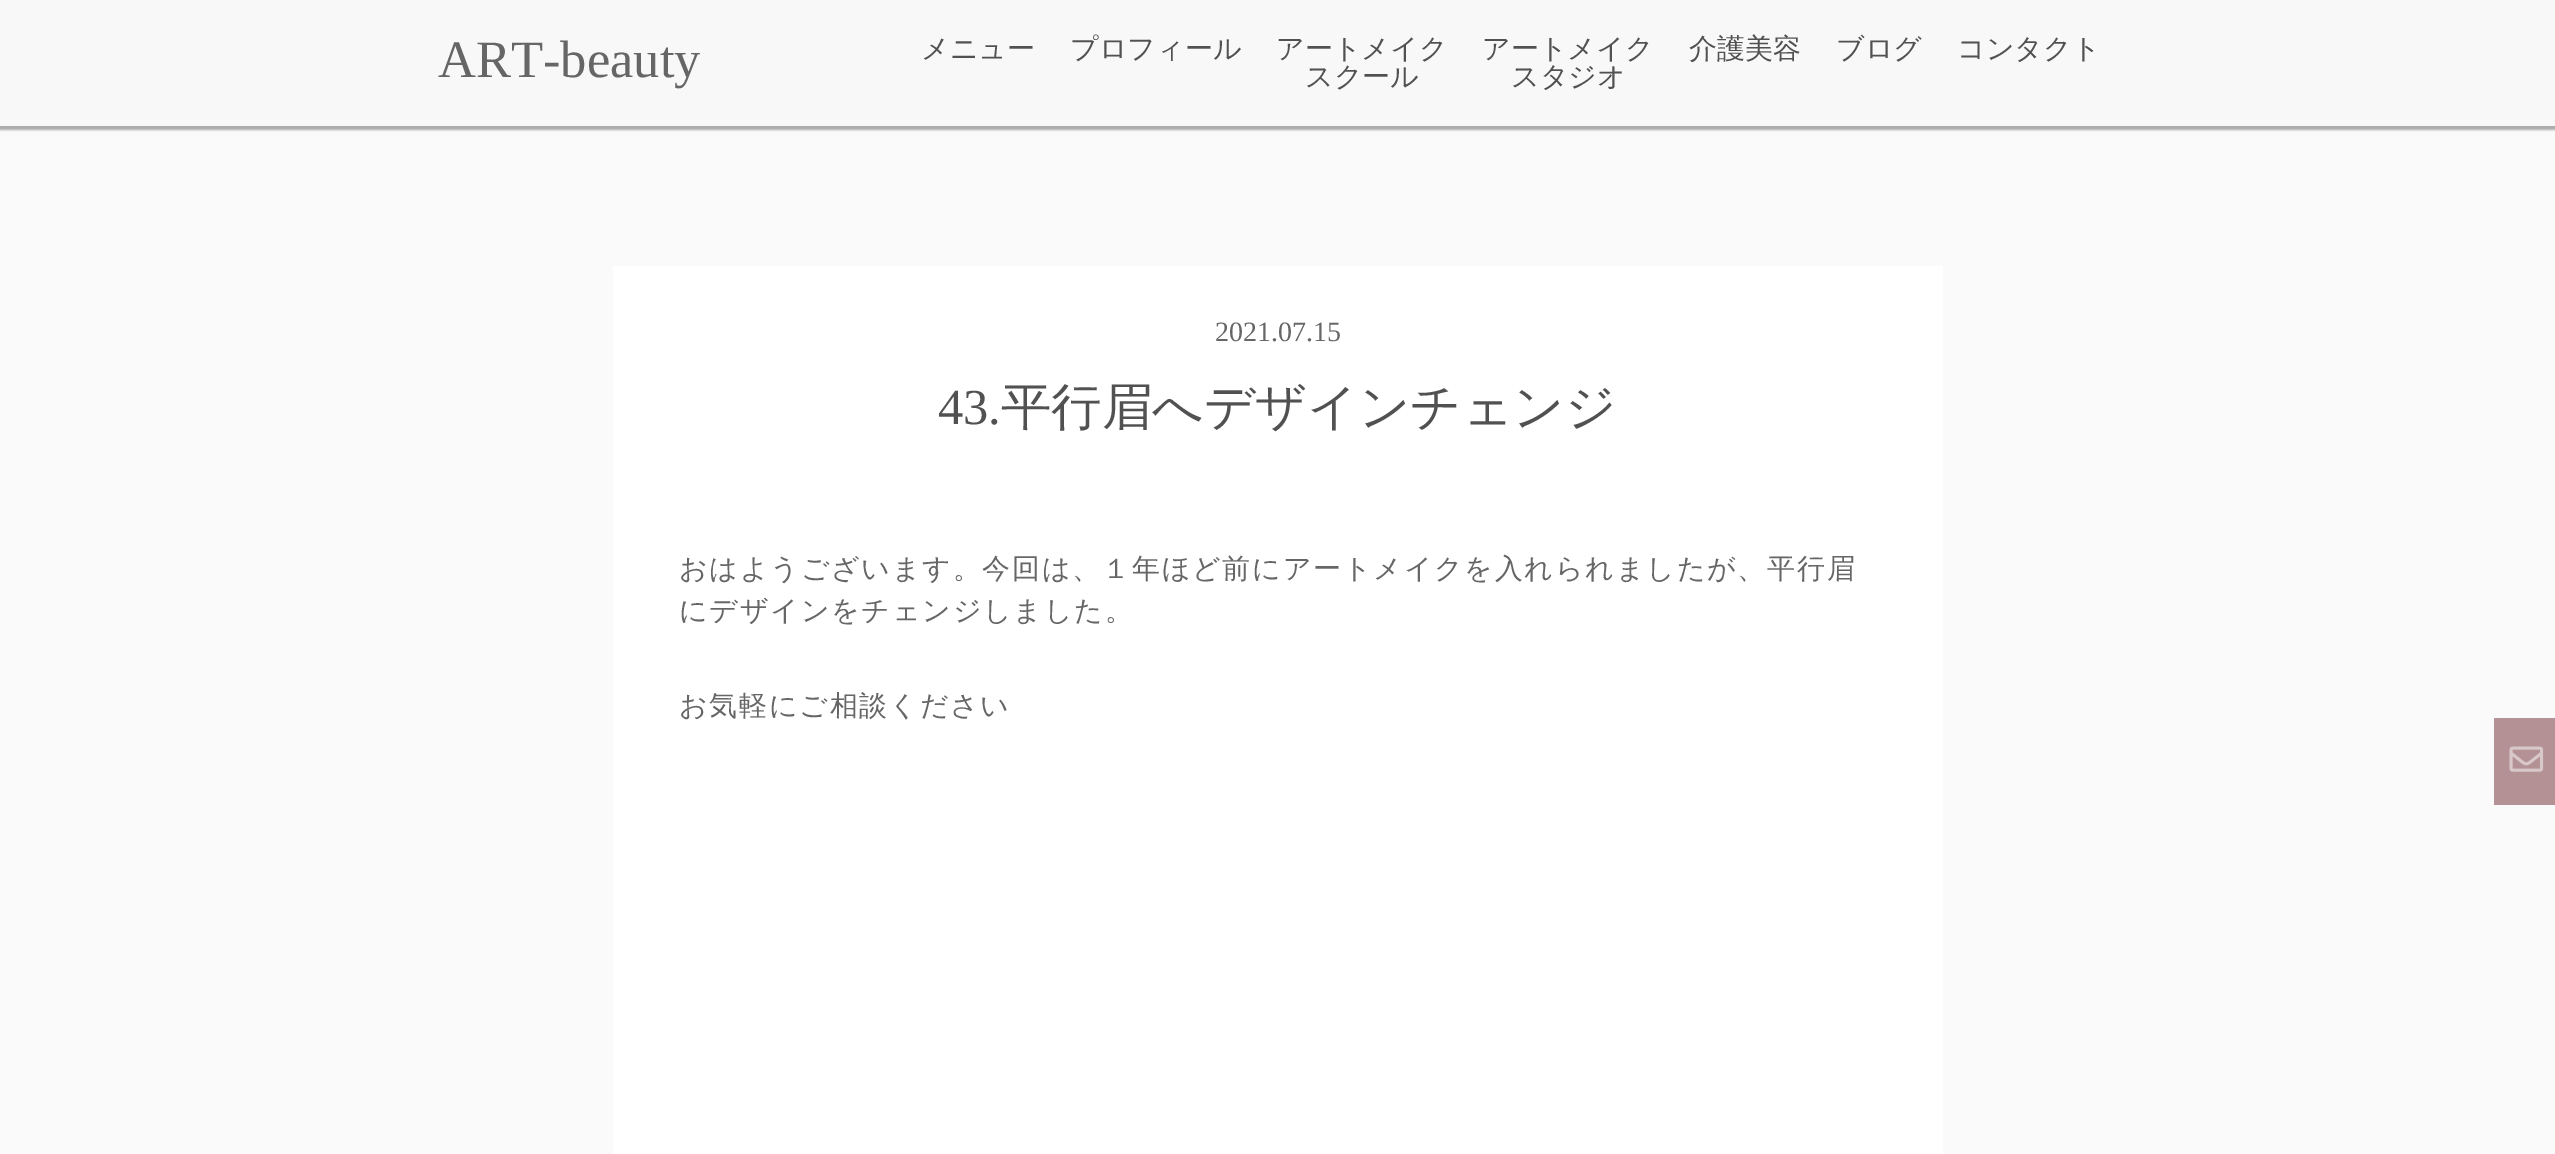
%!PS
<< /PageSize [2555 1154] /PageUsesTransparency true >> setpagedevice
/alpha { dup .setfillconstantalpha .setstrokeconstantalpha } def
/roundrect { 5 dict begin { /r /h /w /y /x } { exch def } forall
  x r add y moveto x w add y 2 copy h add r arct x w add y h add x 1 index r arct
  x y h add x y r arct x y 2 copy exch w add exch r arct closepath end } def
/shadow { 12 dict begin { /a /b /q /h /w /y /x } { exch def } forall gsave /was 0 def
  9 -2 -9 { dup b mul 4 div /e exch def 1 sub .425 mul 2.718 exch exp 1 add a .99 .min exch div /now exch def
    1 1 now sub 1 was sub div sub alpha /was now def
    w h .min e 2 mul add 0 gt { x e sub y e sub w e 2 mul add h e 2 mul add
      q e add b .6 mul add w h .min 2 div e add .min 0 .max roundrect fill } if } for grestore end } def
/picture { 5 dict begin { /h /w /y /x /name } { exch def } forall
  gsave x y translate w h scale
  w h 8 [w 0 0 h 0 0] name (r) file false 3 colorimage grestore end } def
0 .pushpdf14devicefilter
0 1154 translate 1 -1 scale
4 setmiterlimit
0.98 setgray
0 0 2555 1154 rectfill
0.667 setgray
-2 0 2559 130 0 1 1 shadow
0.973 setgray
0 0 2555 126 rectfill
/LiberationSerif-Regular [52.5 0 0 -52.5 0 0] selectfont
0.4 setgray
438 77 moveto (ART-beauty) show
/WenQuanYiZenHei-Medium [28 0 0 -28 0 0] selectfont
0.318 setgray
921 58 moveto (メニュー) show
1070 58 moveto (プロフィール) show
1276 58 moveto (アートメイク) show
1305 86 moveto (スクール) show
1482 58 moveto (アートメイク) show
1511 86 moveto (スタジオ) show
1689 58 moveto (介護美容) show
1836 58 moveto (ブログ) show
1957 58 moveto (コンタクト) show
1 setgray
613 266 1330 888 rectfill
/LiberationSerif-Regular [28 0 0 -28 0 0] selectfont
0.4 setgray
1215 341 moveto (2021.07.15) show
/LiberationSerif-Regular [50.4 0 0 -50.4 0 0] selectfont
0.318 setgray
938 424 moveto (43.) show
/WenQuanYiZenHei-Medium [50.4 0 0 -50.4 0 0] selectfont
1001 424 moveto (平行眉へデザインチェンジ) show
/WenQuanYiZenHei-Medium [28 0 0 -28 0 0] selectfont
0.4 setgray
679 578 moveto 1.75 0 (おはようございます。今回は、１年ほど前にアートメイクを入れられましたが、平行眉) ashow
679 620 moveto 1.75 0 (にデザインをチェンジしました。) ashow
679 715 moveto 1.75 0 (お気軽にご相談ください) ashow
0.702 0.569 0.58 setrgbcolor
2494 718 61 87 rectfill
(img1.rgb) 2509 746 35 26 picture
.poppdf14devicefilter showpage
